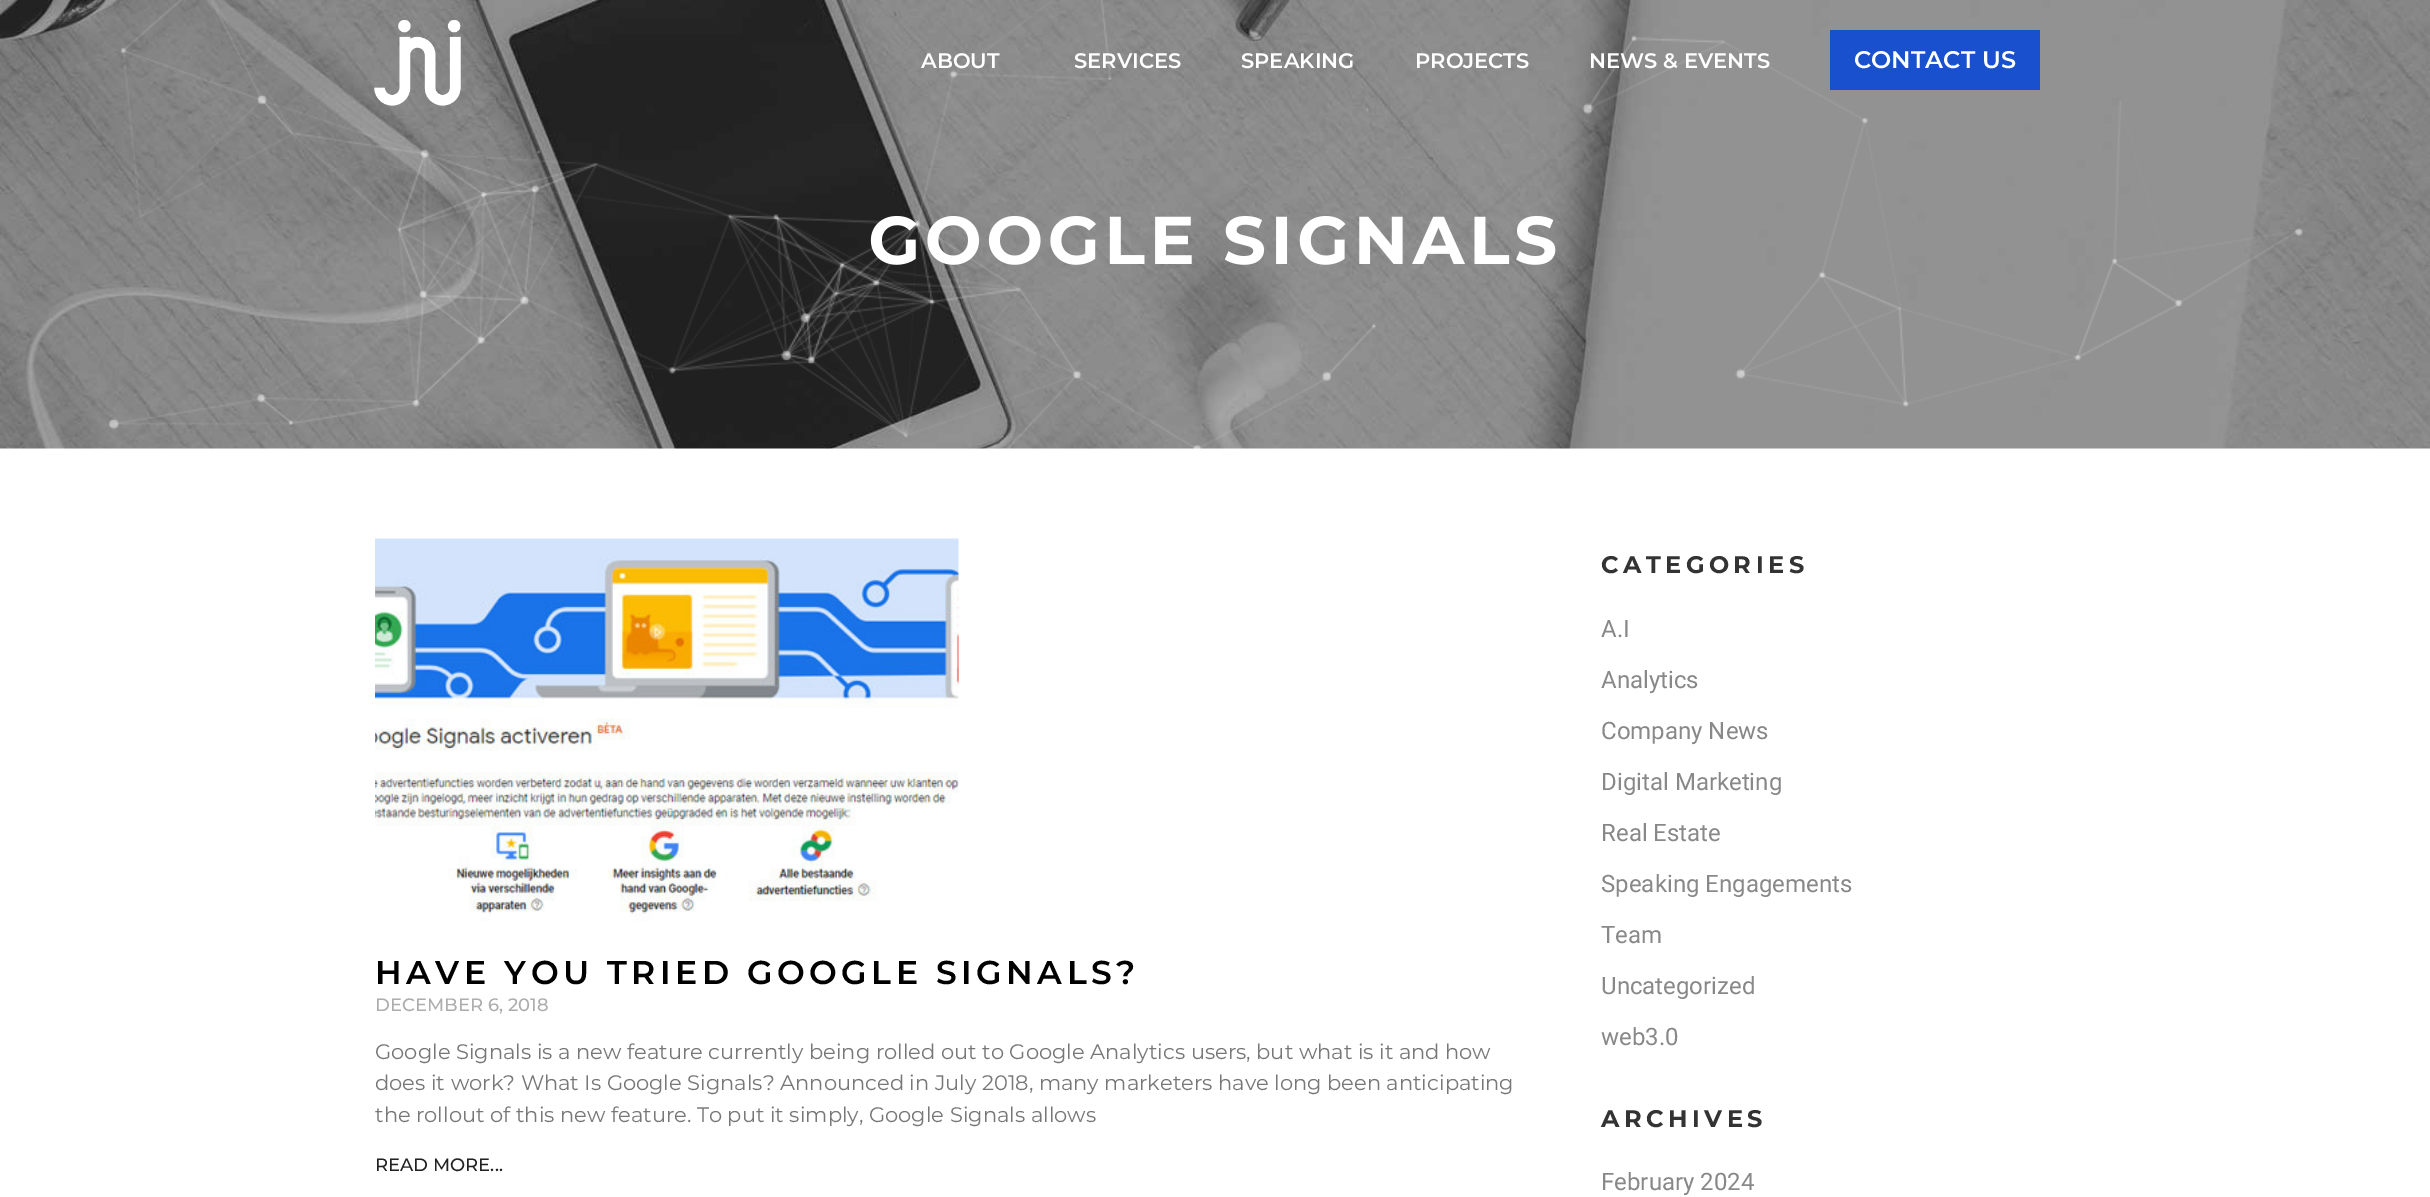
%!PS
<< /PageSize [2430 1197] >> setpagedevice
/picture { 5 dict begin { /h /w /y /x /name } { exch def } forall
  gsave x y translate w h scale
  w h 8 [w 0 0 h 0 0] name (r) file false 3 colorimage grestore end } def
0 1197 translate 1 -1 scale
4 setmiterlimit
1 setgray
0 0 2430 1197 rectfill
(img2.rgb) 0 0 2430 449 picture
/Montserrat-Bold [67.5 0 0 -67.5 0 0] selectfont
868 264 moveto 4.5 0 (GOOGLE SIGNALS) ashow
(img3.rgb) 109 0 2194 449 picture
(img1.rgb) 374 20 87 86 picture
/Montserrat-SemiBold [21 0 0 -21 0 0] selectfont
921 68 moveto (ABOUT) show
1074 68 moveto (SERVICES) show
1241 68 moveto (SPEAKING) show
1415 68 moveto (PROJECTS) show
1589 68 moveto (NEWS & EVENTS) show
0.098 0.314 0.808 setrgbcolor
1830 30 210 60 rectfill
/Montserrat-SemiBold [24 0 0 -24 0 0] selectfont
1 setgray
1854 68 moveto (CONTACT US) show
(img4.rgb) 375 538 584 384 picture
/Montserrat-SemiBold [33 0 0 -33 0 0] selectfont
0 setgray
375 984 moveto 4.5 0 (HAVE YOU TRIED GOOGLE SIGNALS?) ashow
/Montserrat-Medium [18 0 0 -18 0 0] selectfont
0.678 setgray
375 1011 moveto (DECEMBER 6, 2018) show
/Montserrat-Regular [21 0 0 -21 0 0] selectfont
0.467 setgray
375 1059 moveto (Google Signals is a new feature currently being rolled out to Google Analytics users, but what is it and how) show
375 1090 moveto (does it work? What Is Google Signals? Announced in July 2018, many marketers have long been anticipating) show
375 1122 moveto (the rollout of this new feature. To put it simply, Google Signals allows) show
/Montserrat-Medium [18 0 0 -18 0 0] selectfont
0.133 setgray
375 1171 moveto (READ MORE...) show
/Montserrat-Bold [24 0 0 -24 0 0] selectfont
0.2 setgray
1601 573 moveto 4.5 0 (CATEGORIES) ashow
/Roboto-Regular [24 0 0 -24 0 0] selectfont
0.533 setgray
1601 637 moveto (A.I) show
1601 688 moveto (Analytics) show
1601 739 moveto (Company News) show
1601 790 moveto (Digital Marketing) show
1601 841 moveto (Real Estate) show
1601 892 moveto (Speaking Engagements) show
1601 943 moveto (Team) show
1601 994 moveto (Uncategorized) show
1601 1045 moveto (web3.0) show
/Montserrat-Bold [24 0 0 -24 0 0] selectfont
0.2 setgray
1601 1127 moveto 4.5 0 (ARCHIVES) ashow
/Roboto-Regular [24 0 0 -24 0 0] selectfont
0.533 setgray
1601 1190 moveto (February 2024) show
showpage
